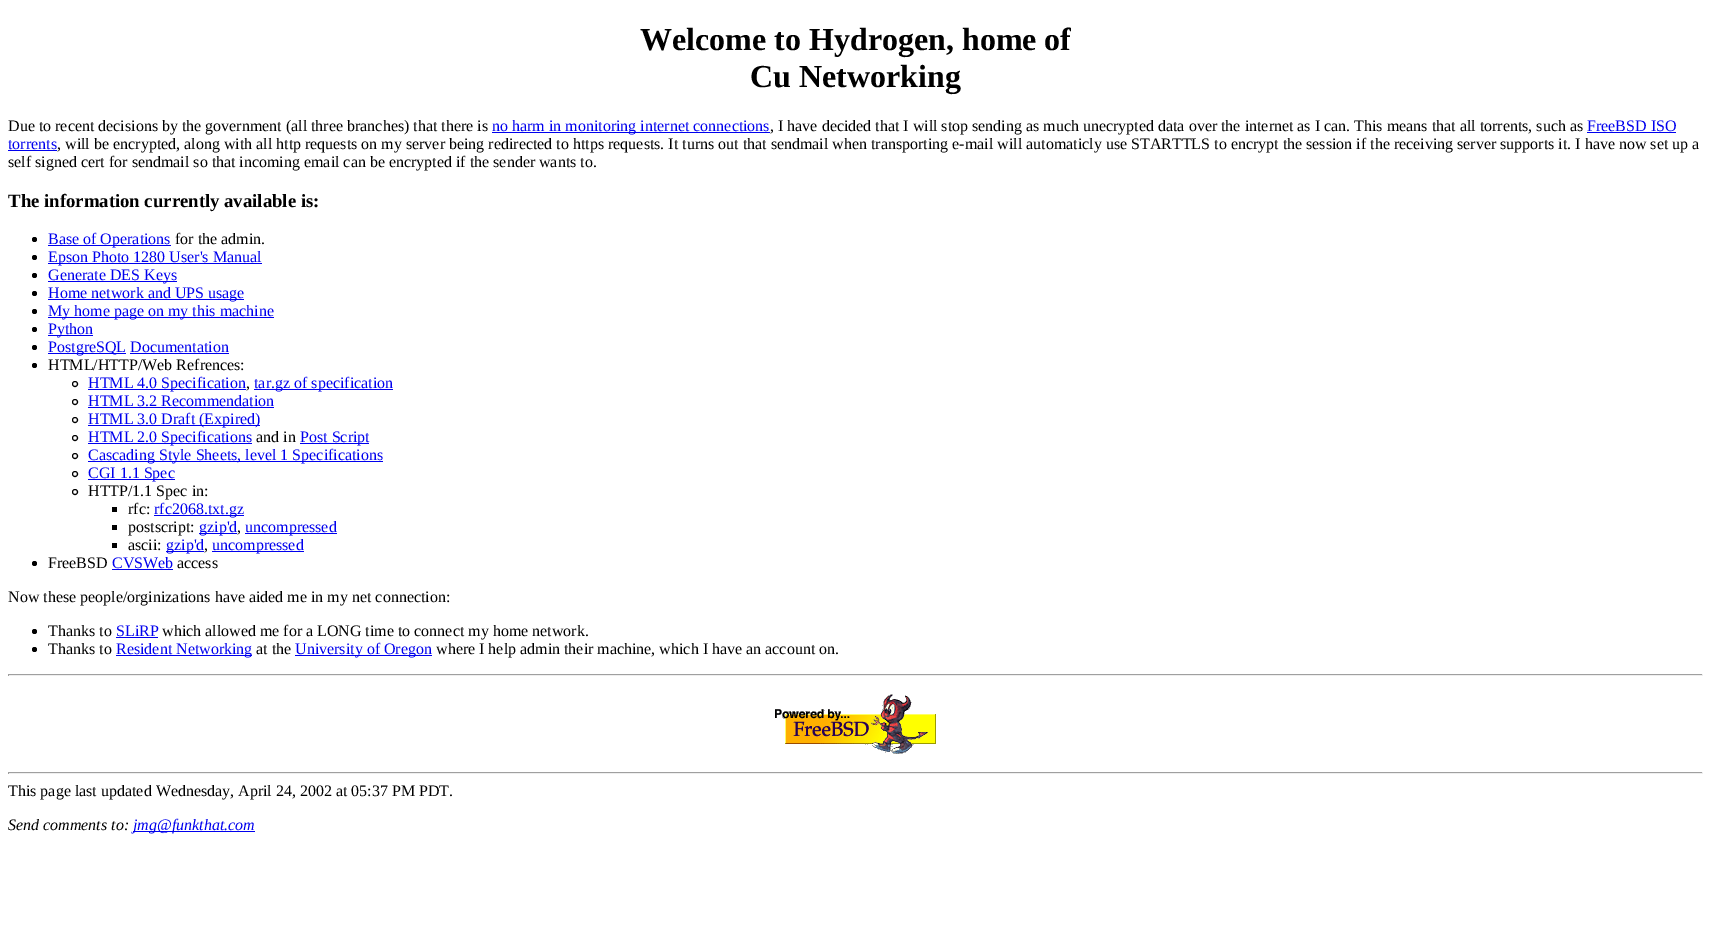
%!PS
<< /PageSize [1711 937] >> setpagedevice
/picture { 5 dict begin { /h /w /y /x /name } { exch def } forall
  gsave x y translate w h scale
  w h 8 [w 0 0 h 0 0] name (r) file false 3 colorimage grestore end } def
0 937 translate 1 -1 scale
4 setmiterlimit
1 setgray
0 0 1711 937 rectfill
/LiberationSerif-Bold [32 0 0 -32 0 0] selectfont
0 setgray
640 50 moveto (Welcome to Hydrogen, home of) show
750 87 moveto (Cu Networking) show
/LiberationSerif-Regular [16 0 0 -16 0 0] selectfont
8 131 moveto (Due to recent decisions by the government \(all three branches\) that there is) show
0 0 0.933 setrgbcolor
492 132 278 1 rectfill
492 131 moveto (no harm in monitoring internet connections) show
0 setgray
770 131 moveto (, I have decided that I will stop sending as much unecrypted data over the internet as I can. This means that all torrents, such as) show
0 0 0.933 setrgbcolor
1587 131 moveto (FreeBSD ISO) show
1587 132 89 1 rectfill
8 149 moveto (torrents) show
8 150 49 1 rectfill
0 setgray
57 149 moveto (, will be encrypted, along with all http requests on my server being redirected to https requests. It turns out that sendmail when transporting e-mail will automaticly use STARTTLS to encrypt the session if the receiving server supports it. I have now set up a) show
8 167 moveto (self signed cert for sendmail so that incoming email can be encrypted if the sender wants to.) show
/LiberationSerif-Bold [18.75 0 0 -18.75 0 0] selectfont
8 207 moveto (The information currently available is:) show
newpath 34.5 239.5 2.5 0 360 arc closepath fill
0 0 0.933 setrgbcolor
48 245 123 1 rectfill
/LiberationSerif-Regular [16 0 0 -16 0 0] selectfont
48 244 moveto (Base of Operations) show
0 setgray
175 244 moveto (for the admin.) show
newpath 34.5 257.5 2.5 0 360 arc closepath fill
0 0 0.933 setrgbcolor
48 263 214 1 rectfill
48 262 moveto (Epson Photo 1280 User's Manual) show
0 setgray
newpath 34.5 275.5 2.5 0 360 arc closepath fill
0 0 0.933 setrgbcolor
48 281 129 1 rectfill
48 280 moveto (Generate DES Keys) show
0 setgray
newpath 34.5 293.5 2.5 0 360 arc closepath fill
0 0 0.933 setrgbcolor
48 299 196 1 rectfill
48 298 moveto (Home network and UPS usage) show
0 setgray
newpath 34.5 311.5 2.5 0 360 arc closepath fill
0 0 0.933 setrgbcolor
48 317 226 1 rectfill
48 316 moveto (My home page on my this machine) show
0 setgray
newpath 34.5 329.5 2.5 0 360 arc closepath fill
0 0 0.933 setrgbcolor
48 335 45 1 rectfill
48 334 moveto (Python) show
0 setgray
newpath 34.5 347.5 2.5 0 360 arc closepath fill
0 0 0.933 setrgbcolor
48 353 78 1 rectfill
48 352 moveto (PostgreSQL Documentation) show
130 353 99 1 rectfill
0 setgray
newpath 34.5 365.5 2.5 0 360 arc closepath fill
48 370 moveto (HTML/HTTP/Web Refrences:) show
newpath 75 384 2.5 0 360 arc closepath stroke
0 0 0.933 setrgbcolor
88 389 158 1 rectfill
88 388 moveto (HTML 4.0 Specification) show
254 389 139 1 rectfill
254 388 moveto (tar.gz of specification) show
0 setgray
246 388 moveto (,) show
newpath 75 402 2.5 0 360 arc closepath stroke
0 0 0.933 setrgbcolor
88 406 moveto (HTML 3.2 Recommendation) show
88 407 186 1 rectfill
0 setgray
newpath 75 420 2.5 0 360 arc closepath stroke
0 0 0.933 setrgbcolor
88 425 172 1 rectfill
88 424 moveto (HTML 3.0 Draft \(Expired\)) show
0 setgray
newpath 75 438 2.5 0 360 arc closepath stroke
0 0 0.933 setrgbcolor
88 443 164 1 rectfill
88 442 moveto (HTML 2.0 Specifications) show
0 setgray
256 442 moveto (and in) show
0 0 0.933 setrgbcolor
300 443 69 1 rectfill
300 442 moveto (Post Script) show
0 setgray
newpath 75 456 2.5 0 360 arc closepath stroke
0 0 0.933 setrgbcolor
88 461 295 1 rectfill
88 460 moveto (Cascading Style Sheets, level 1 Specifications) show
0 setgray
newpath 75 474 2.5 0 360 arc closepath stroke
0 0 0.933 setrgbcolor
88 479 87 1 rectfill
88 478 moveto (CGI 1.1 Spec) show
0 setgray
newpath 75 492 2.5 0 360 arc closepath stroke
88 496 moveto (HTTP/1.1 Spec in:) show
112 507 5 5 rectfill
128 514 moveto (rfc:) show
0 0 0.933 setrgbcolor
154 515 90 1 rectfill
154 514 moveto (rfc2068.txt.gz) show
0 setgray
112 525 5 5 rectfill
128 532 moveto (postscript:) show
0 0 0.933 setrgbcolor
199 533 38 1 rectfill
199 532 moveto (gzip'd) show
245 533 92 1 rectfill
245 532 moveto (uncompressed) show
0 setgray
237 532 moveto (,) show
112 543 5 5 rectfill
128 550 moveto (ascii:) show
0 0 0.933 setrgbcolor
166 551 38 1 rectfill
166 550 moveto (gzip'd) show
212 551 92 1 rectfill
212 550 moveto (uncompressed) show
0 setgray
204 550 moveto (,) show
newpath 34.5 563.5 2.5 0 360 arc closepath fill
48 568 moveto (FreeBSD) show
0 0 0.933 setrgbcolor
112 568 moveto (CVSWeb) show
112 569 61 1 rectfill
0 setgray
177 568 moveto (access) show
8 602 moveto (Now these people/orginizations have aided me in my net connection:) show
newpath 34.5 631.5 2.5 0 360 arc closepath fill
48 636 moveto (Thanks to) show
0 0 0.933 setrgbcolor
116 636 moveto (SLiRP) show
116 637 42 1 rectfill
0 setgray
162 636 moveto (which allowed me for a LONG time to connect my home network.) show
newpath 34.5 649.5 2.5 0 360 arc closepath fill
48 654 moveto (Thanks to) show
0 0 0.933 setrgbcolor
116 655 136 1 rectfill
116 654 moveto (Resident Networking) show
0 setgray
256 654 moveto (at the) show
0 0 0.933 setrgbcolor
295 655 137 1 rectfill
295 654 moveto (University of Oregon) show
0 setgray
436 654 moveto (where I help admin their machine, which I have an account on.) show
0.624 setgray
8 674 1695 1 rectfill
0.933 setgray
1702 674 1 2 rectfill
8 675 1695 1 rectfill
0.624 setgray
8 674 1 2 rectfill
(img1.rgb) 775 694 161 60 picture
8 772 1695 1 rectfill
0.933 setgray
1702 772 1 2 rectfill
8 773 1695 1 rectfill
0.624 setgray
8 772 1 2 rectfill
0 setgray
8 796 moveto (This page last updated Wednesday, April 24, 2002 at 05:37 PM PDT.) show
/LiberationSerif-Italic [16 0 0 -16 0 0] selectfont
8 830 moveto (Send comments to:) show
0 0 0.933 setrgbcolor
133 831 122 1 rectfill
133 830 moveto (jmg@funkthat.com) show
showpage
